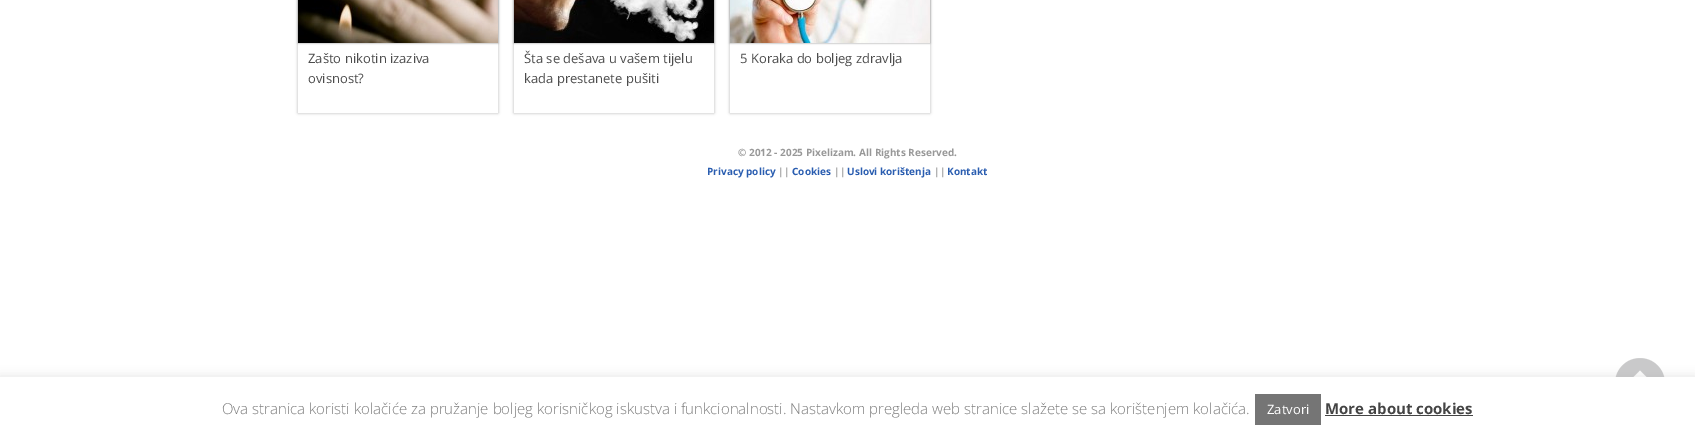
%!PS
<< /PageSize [1695 437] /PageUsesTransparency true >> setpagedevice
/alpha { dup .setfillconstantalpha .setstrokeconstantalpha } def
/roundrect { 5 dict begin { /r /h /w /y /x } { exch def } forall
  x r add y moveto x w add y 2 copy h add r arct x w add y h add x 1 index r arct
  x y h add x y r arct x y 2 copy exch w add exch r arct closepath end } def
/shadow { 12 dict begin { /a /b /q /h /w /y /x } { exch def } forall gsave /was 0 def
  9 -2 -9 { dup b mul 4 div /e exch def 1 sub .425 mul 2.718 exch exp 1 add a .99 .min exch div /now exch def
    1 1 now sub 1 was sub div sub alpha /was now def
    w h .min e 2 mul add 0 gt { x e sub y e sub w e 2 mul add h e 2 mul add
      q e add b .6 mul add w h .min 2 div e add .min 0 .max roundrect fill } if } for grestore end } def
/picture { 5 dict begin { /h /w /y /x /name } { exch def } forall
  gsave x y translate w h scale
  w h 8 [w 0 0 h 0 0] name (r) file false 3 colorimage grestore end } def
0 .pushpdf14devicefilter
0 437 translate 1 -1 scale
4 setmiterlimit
1 setgray
0 0 1695 437 rectfill
gsave
newpath 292 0 moveto 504 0 lineto 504 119 lineto 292 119 lineto closepath 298 -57 moveto 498 -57 lineto 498 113 lineto 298 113 lineto closepath eoclip newpath
0.729 setgray
298 -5 200 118 0 1.5 1 shadow
grestore
0.533 setgray
298 -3 200 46 0 1 1 shadow
(img1.rgb) 298 0 200 43 picture
/OpenSans-Regular [13 0 0 -13 0 0] selectfont
0.298 setgray
308 63 moveto (Zašto nikotin izaziva) show
308 83 moveto (ovisnost?) show
gsave
newpath 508 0 moveto 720 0 lineto 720 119 lineto 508 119 lineto closepath 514 -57 moveto 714 -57 lineto 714 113 lineto 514 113 lineto closepath eoclip newpath
0.729 setgray
514 -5 200 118 0 1.5 1 shadow
grestore
0.533 setgray
514 -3 200 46 0 1 1 shadow
(img2.rgb) 514 0 200 43 picture
0.298 setgray
524 63 moveto (Šta se dešava u vašem tijelu) show
524 83 moveto (kada prestanete pušiti) show
gsave
newpath 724 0 moveto 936 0 lineto 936 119 lineto 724 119 lineto closepath 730 -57 moveto 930 -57 lineto 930 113 lineto 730 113 lineto closepath eoclip newpath
0.729 setgray
730 -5 200 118 0 1.5 1 shadow
grestore
0.533 setgray
730 -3 200 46 0 1 1 shadow
(img3.rgb) 730 0 200 43 picture
0.298 setgray
740 63 moveto (5 Koraka do boljeg zdravlja) show
(img4.rgb) 1615 358 50 19 picture
/OpenSans-Bold [10 0 0 -10 0 0] selectfont
0.596 setgray
738 156 moveto (© 2012 - 2025 Pixelizam. All Rights Reserved.) show
0.165 0.365 0.69 setrgbcolor
707 175 moveto (Privacy policy) show
0.596 setgray
778 175 moveto (||) show
0.165 0.365 0.69 setrgbcolor
792 175 moveto (Cookies) show
0.596 setgray
834 175 moveto (||) show
0.165 0.365 0.69 setrgbcolor
847 175 moveto (Uslovi korištenja) show
0.596 setgray
934 175 moveto (||) show
0.165 0.365 0.69 setrgbcolor
947 175 moveto (Kontakt) show
0.675 0.671 0.671 setrgbcolor
0 376 1695 60 0 5 0.3 shadow
1 setgray
0 377 1695 60 rectfill
/OpenSans-Light [15 0 0 -15 0 0] selectfont
0.486 setgray
222 414 moveto (Ova stranica koristi kolačiće za pružanje boljeg korisničkog iskustva i funkcionalnosti. Nastavkom pregleda web stranice slažete se sa korištenjem kolačića.) show
0.459 setgray
1255 394 66 31 rectfill
/OpenSans-Regular [13 0 0 -13 0 0] selectfont
1 setgray
1267 414 moveto (Zatvori) show
/OpenSans-Bold [15 0 0 -15 0 0] selectfont
0.267 setgray
1325 414 moveto (More about cookies) show
1325 415 148 1 rectfill
.poppdf14devicefilter showpage
